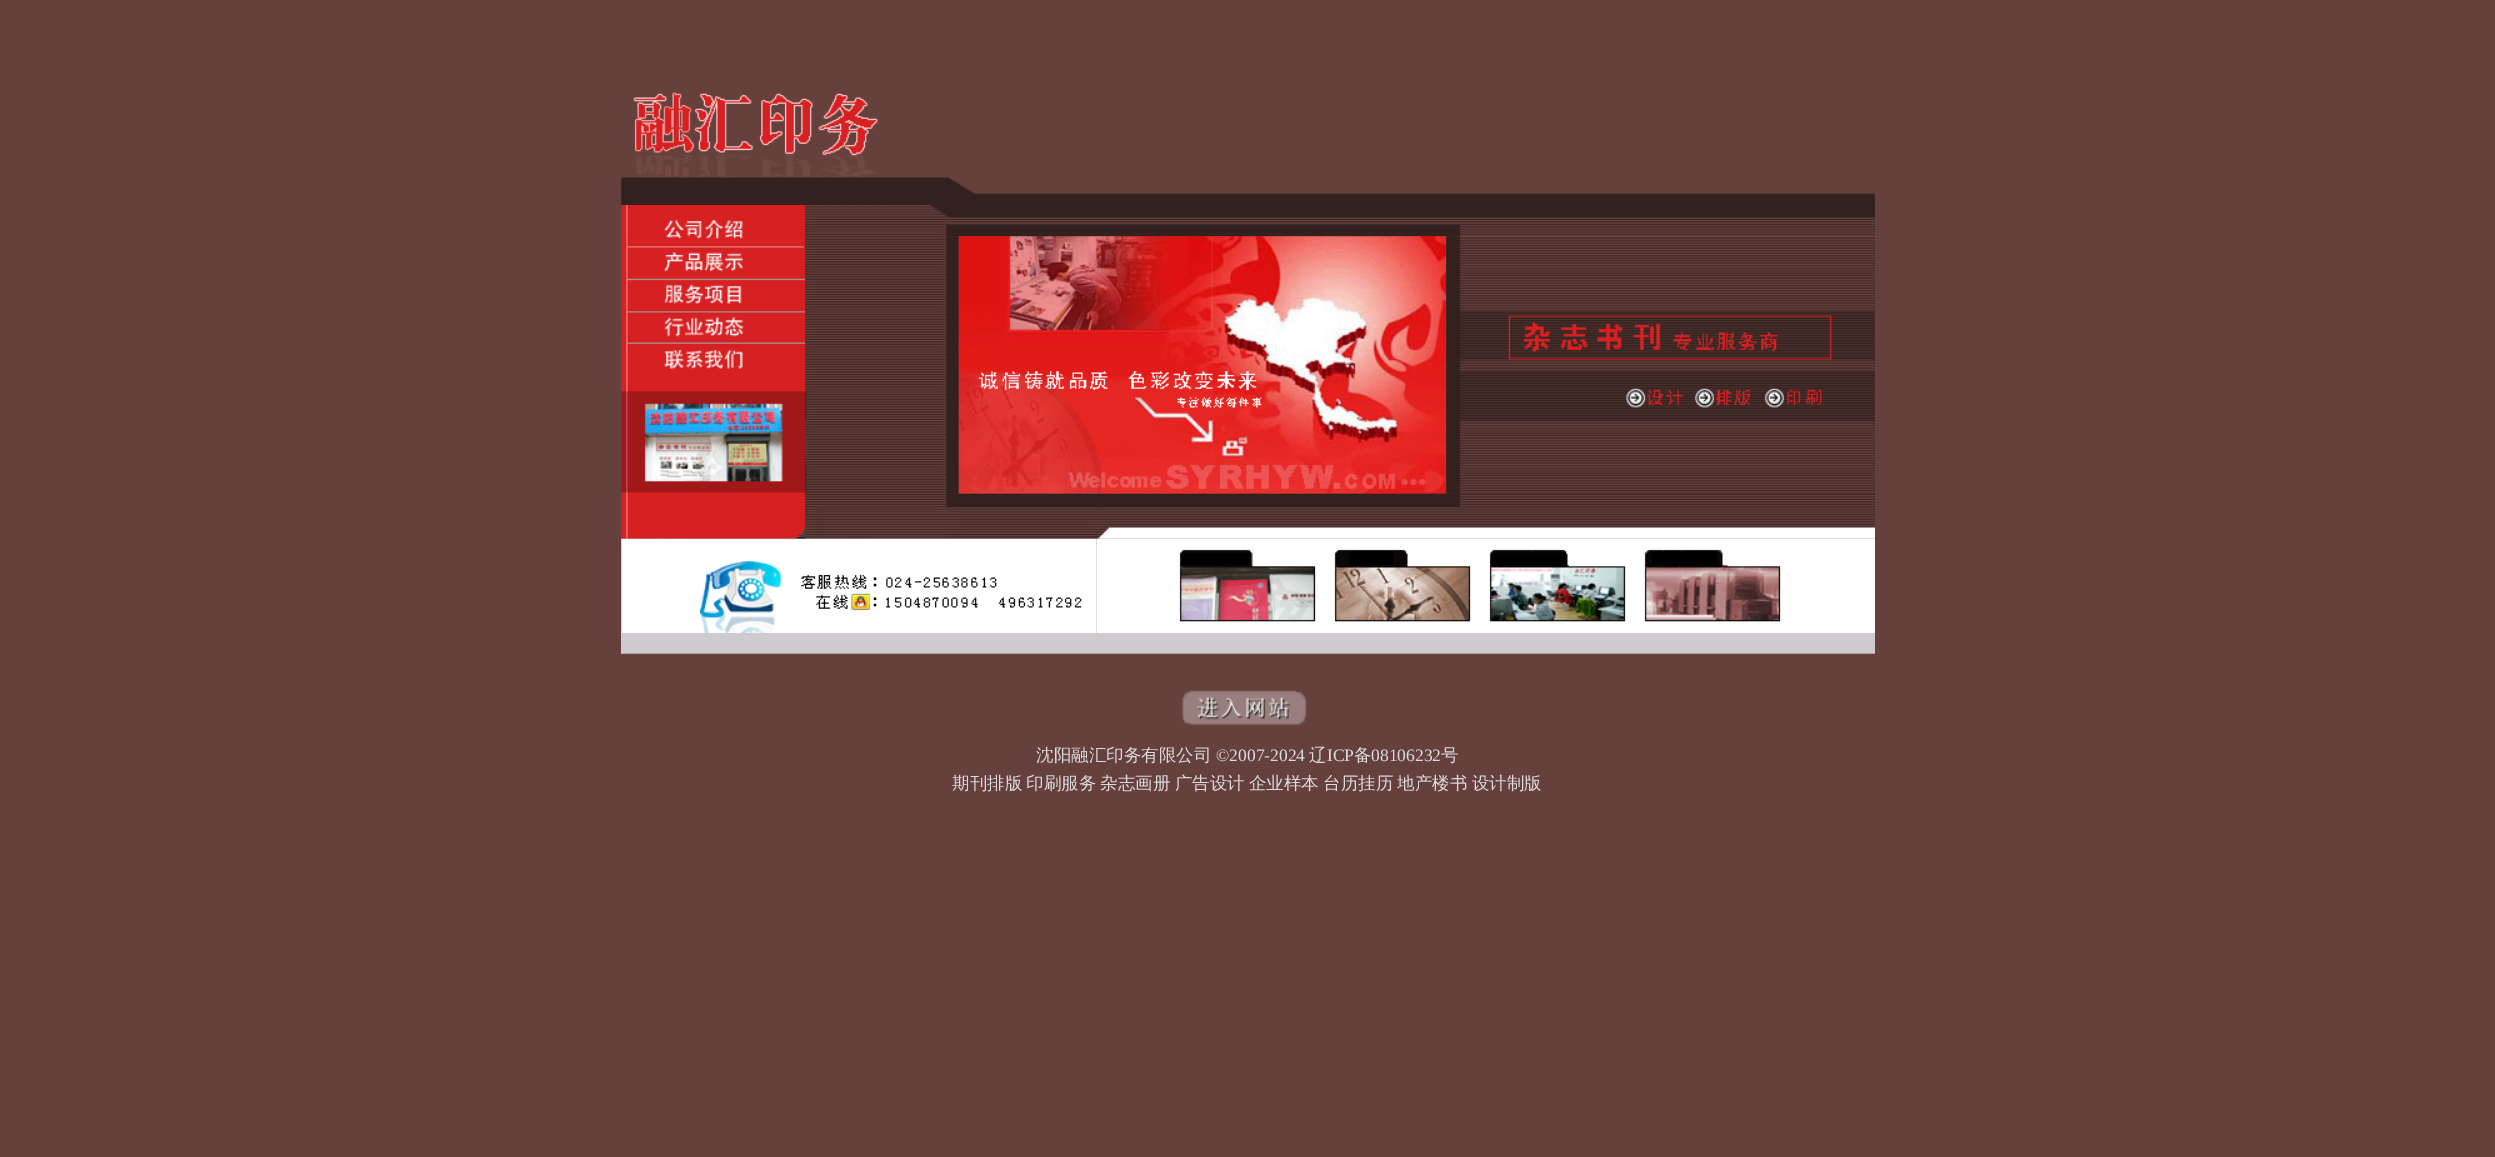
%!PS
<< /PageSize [2495 1157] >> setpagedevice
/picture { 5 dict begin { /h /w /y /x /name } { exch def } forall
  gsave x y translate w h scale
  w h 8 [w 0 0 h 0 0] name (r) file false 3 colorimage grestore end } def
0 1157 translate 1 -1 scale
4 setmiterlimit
0.396 0.251 0.239 setrgbcolor
0 0 2495 1157 rectfill
(img1.rgb) 633 92 245 84 picture
(img2.rgb) 621 176 1254 29 picture
(img3.rgb) 621 205 184 334 picture
(img4.rgb) 805 205 1070 32 picture
(img5.rgb) 805 236 154 258 picture
(img6.rgb) 958 236 489 258 picture
(img7.rgb) 1446 236 429 258 picture
(img8.rgb) 805 493 1070 46 picture
(img9.rgb) 621 538 476 95 picture
(img10.rgb) 1096 538 779 95 picture
0.804 0.796 0.808 setrgbcolor
621 633 1254 21 rectfill
(img11.rgb) 621 653 1254 72 picture
/WenQuanYiZenHei-Medium [17.5 0 0 -17.5 0 0] selectfont
0.863 setgray
1036 761 moveto (沈阳融汇印务有限公司) show
/LiberationSerif-Regular [17.5 0 0 -17.5 0 0] selectfont
1216 761 moveto (©2007-2024) show
/WenQuanYiZenHei-Medium [17.5 0 0 -17.5 0 0] selectfont
1309 761 moveto (辽) show
/LiberationSerif-Regular [17.5 0 0 -17.5 0 0] selectfont
1327 761 moveto (ICP) show
/WenQuanYiZenHei-Medium [17.5 0 0 -17.5 0 0] selectfont
1354 761 moveto (备) show
/LiberationSerif-Regular [17.5 0 0 -17.5 0 0] selectfont
1371 761 moveto (08106232) show
/WenQuanYiZenHei-Medium [17.5 0 0 -17.5 0 0] selectfont
1441 761 moveto (号) show
952 789 moveto -1 0 32 (期刊排版 印刷服务 杂志画册 广告设计 企业样本 台历挂历 地产楼书 设计制版) widthshow
showpage
